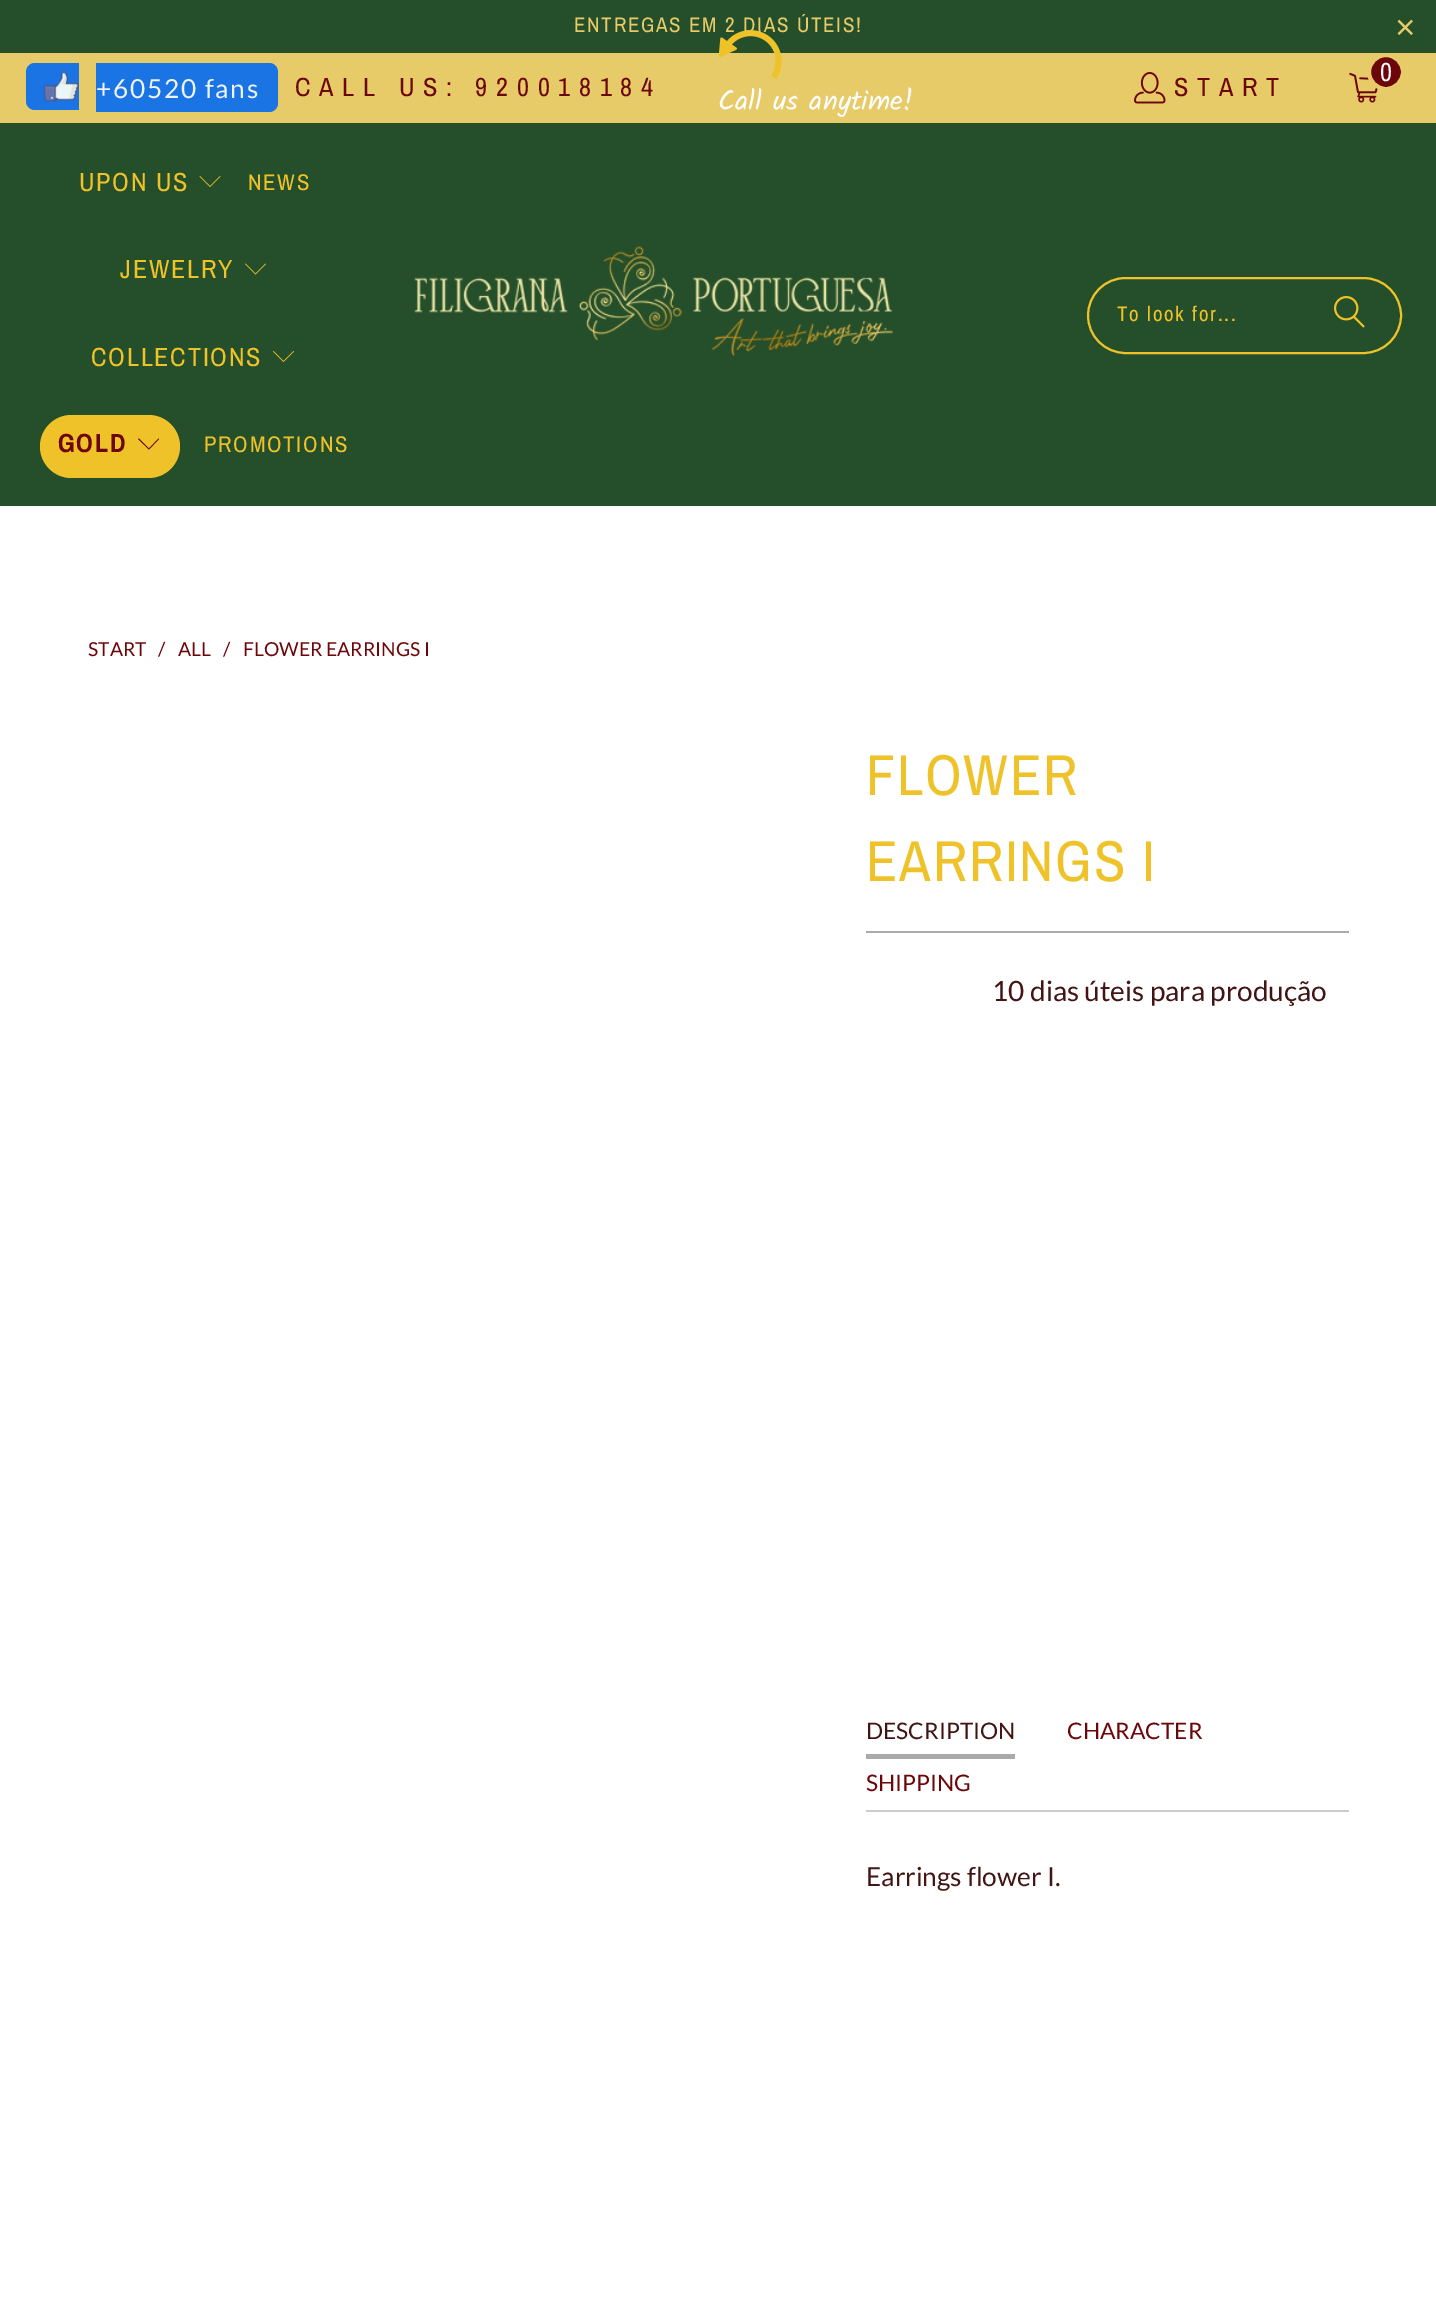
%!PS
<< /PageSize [1436 2298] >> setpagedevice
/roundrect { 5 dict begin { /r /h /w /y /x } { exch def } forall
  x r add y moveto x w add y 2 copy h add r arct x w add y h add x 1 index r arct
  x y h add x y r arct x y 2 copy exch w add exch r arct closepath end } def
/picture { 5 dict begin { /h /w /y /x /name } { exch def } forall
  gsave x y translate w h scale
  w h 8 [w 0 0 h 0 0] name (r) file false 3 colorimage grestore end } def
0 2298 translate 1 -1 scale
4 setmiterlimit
1 setgray
0 0 1436 2298 rectfill
0.145 0.31 0.165 setrgbcolor
0 0 1436 53 rectfill
/ArchivoNarrow-Regular [21 0 0 -21 0 0] selectfont
0.906 0.796 0.408 setrgbcolor
574 32 moveto 1.75 0 (ENTREGAS EM 2 DIAS ÚTEIS!) ashow
/LiberationSans-Regular [35 0 0 -35 0 0] selectfont
1395 39 moveto 1.75 0 (×) ashow
0 53 1436 70 rectfill
0.102 0.455 0.894 setrgbcolor
newpath 35 63 moveto 79 63 lineto 79 110 lineto 35 110 lineto 30 110 26 106 26 101 curveto 26 72 lineto 26 67 30 63 35 63 curveto closepath fill
(img1.rgb) 43 71 36 31 picture
newpath 96 63 moveto 269 63 lineto 274 63 278 67 278 72 curveto 278 103 lineto 278 108 274 112 269 112 curveto 96 112 lineto closepath fill
/Lato-Regular [26.25 0 0 -26.25 0 0] selectfont
0.941 0.957 0.969 setrgbcolor
96 98 moveto 1.75 0 (+60520 fans) ashow
/ArchivoNarrow-Regular [26.25 0 0 -26.25 0 0] selectfont
0.427 0.024 0.035 setrgbcolor
295 96 moveto 8.75 0 (CALL US: 920018184) ashow
(img2.rgb) 1349 72 29 31 picture
newpath 1386 72 17 0 360 arc closepath gsave fill grestore
0.906 0.796 0.408 setrgbcolor
4 setlinewidth
stroke
1 setgray
1380 81 moveto 8.75 0 (0) ashow
(img3.rgb) 1134 72 32 32 picture
0.427 0.024 0.035 setrgbcolor
1174 96 moveto 8.75 0 (START) ashow
(img4.rgb) 718 30 64 49 picture
/Kalam-Regular [28 0 0 -28 0 0] selectfont
1 setgray
718 110 moveto (Call us anytime!) show
0.145 0.31 0.165 setrgbcolor
0 123 1436 383 rectfill
/ArchivoNarrow-Regular [26.25 0 0 -26.25 0 0] selectfont
0.933 0.761 0.157 setrgbcolor
79 191 moveto 1.75 0 (UPON US) ashow
newpath 210 187 moveto 199.5 176.5 lineto 200 176 lineto 210 186 lineto 220 176 lineto 220.5 176.5 lineto closepath fill
/ArchivoNarrow-Regular [22.75 0 0 -22.75 0 0] selectfont
248 190 moveto 1.75 0 (NEWS) ashow
/ArchivoNarrow-Regular [26.25 0 0 -26.25 0 0] selectfont
120 278 moveto 1.75 0 (JEWELRY) ashow
newpath 255.5 274.5 moveto 245 264 lineto 245.5 263.5 lineto 255.5 273.5 lineto 265.5 263.5 lineto 266 264 lineto closepath fill
91 366 moveto 1.75 0 (COLLECTIONS) ashow
newpath 283.5 362 moveto 273 351.5 lineto 273.5 351 lineto 283.5 361 lineto 293.5 351 lineto 294 351.5 lineto closepath fill
40 415 140 63 31.5 roundrect fill
/ArchivoNarrow-Bold [26.25 0 0 -26.25 0 0] selectfont
0.427 0.024 0.035 setrgbcolor
58 452 moveto 1.75 0 (GOLD) ashow
newpath 149 449.5 moveto 138 439 lineto 139 438.5 lineto 149 448.5 lineto 158.5 438.5 lineto 159 439 lineto closepath fill
/ArchivoNarrow-Regular [22.75 0 0 -22.75 0 0] selectfont
0.933 0.761 0.157 setrgbcolor
204 452 moveto 1.75 0 (PROMOTIONS) ashow
(img5.rgb) 414 246 479 110 picture
2 setlinewidth
1088 278 313 75 37.5 roundrect stroke
/ArchivoNarrow-Regular [21 0 0 -21 0 0] selectfont
1117 321 moveto 1.75 0 (To look for...) ashow
(img6.rgb) 1334 296 31 32 picture
/Lato-Regular [19.25 0 0 -19.25 0 0] selectfont
0.427 0.024 0.035 setrgbcolor
88 656 moveto (START) show
158 656 moveto (/) show
178 656 moveto (ALL) show
223 656 moveto (/) show
243 656 moveto (FLOWER EARRINGS I) show
/ArchivoNarrow-Regular [57.75 0 0 -57.75 0 0] selectfont
0.933 0.761 0.157 setrgbcolor
866 795 moveto 1.75 0 (FLOWER) ashow
866 881 moveto 1.75 0 (EARRINGS I) ashow
0.667 setgray
866 931 483 2 rectfill
/Lato-Regular [28 0 0 -28 0 0] selectfont
0.259 0.078 0.078 setrgbcolor
992 1001 moveto (10 dias úteis para produção) show
0.8 setgray
866 1810 483 2 rectfill
0.667 setgray
866 1754 149 5 rectfill
/Lato-Regular [22.75 0 0 -22.75 0 0] selectfont
0.259 0.078 0.078 setrgbcolor
866 1739 moveto (DESCRIPTION) show
0.427 0.024 0.035 setrgbcolor
1067 1739 moveto (CHARACTER) show
866 1791 moveto (SHIPPING) show
/Lato-Regular [26.25 0 0 -26.25 0 0] selectfont
0.259 0.078 0.078 setrgbcolor
866 1886 moveto (Earrings flower I.) show
showpage
